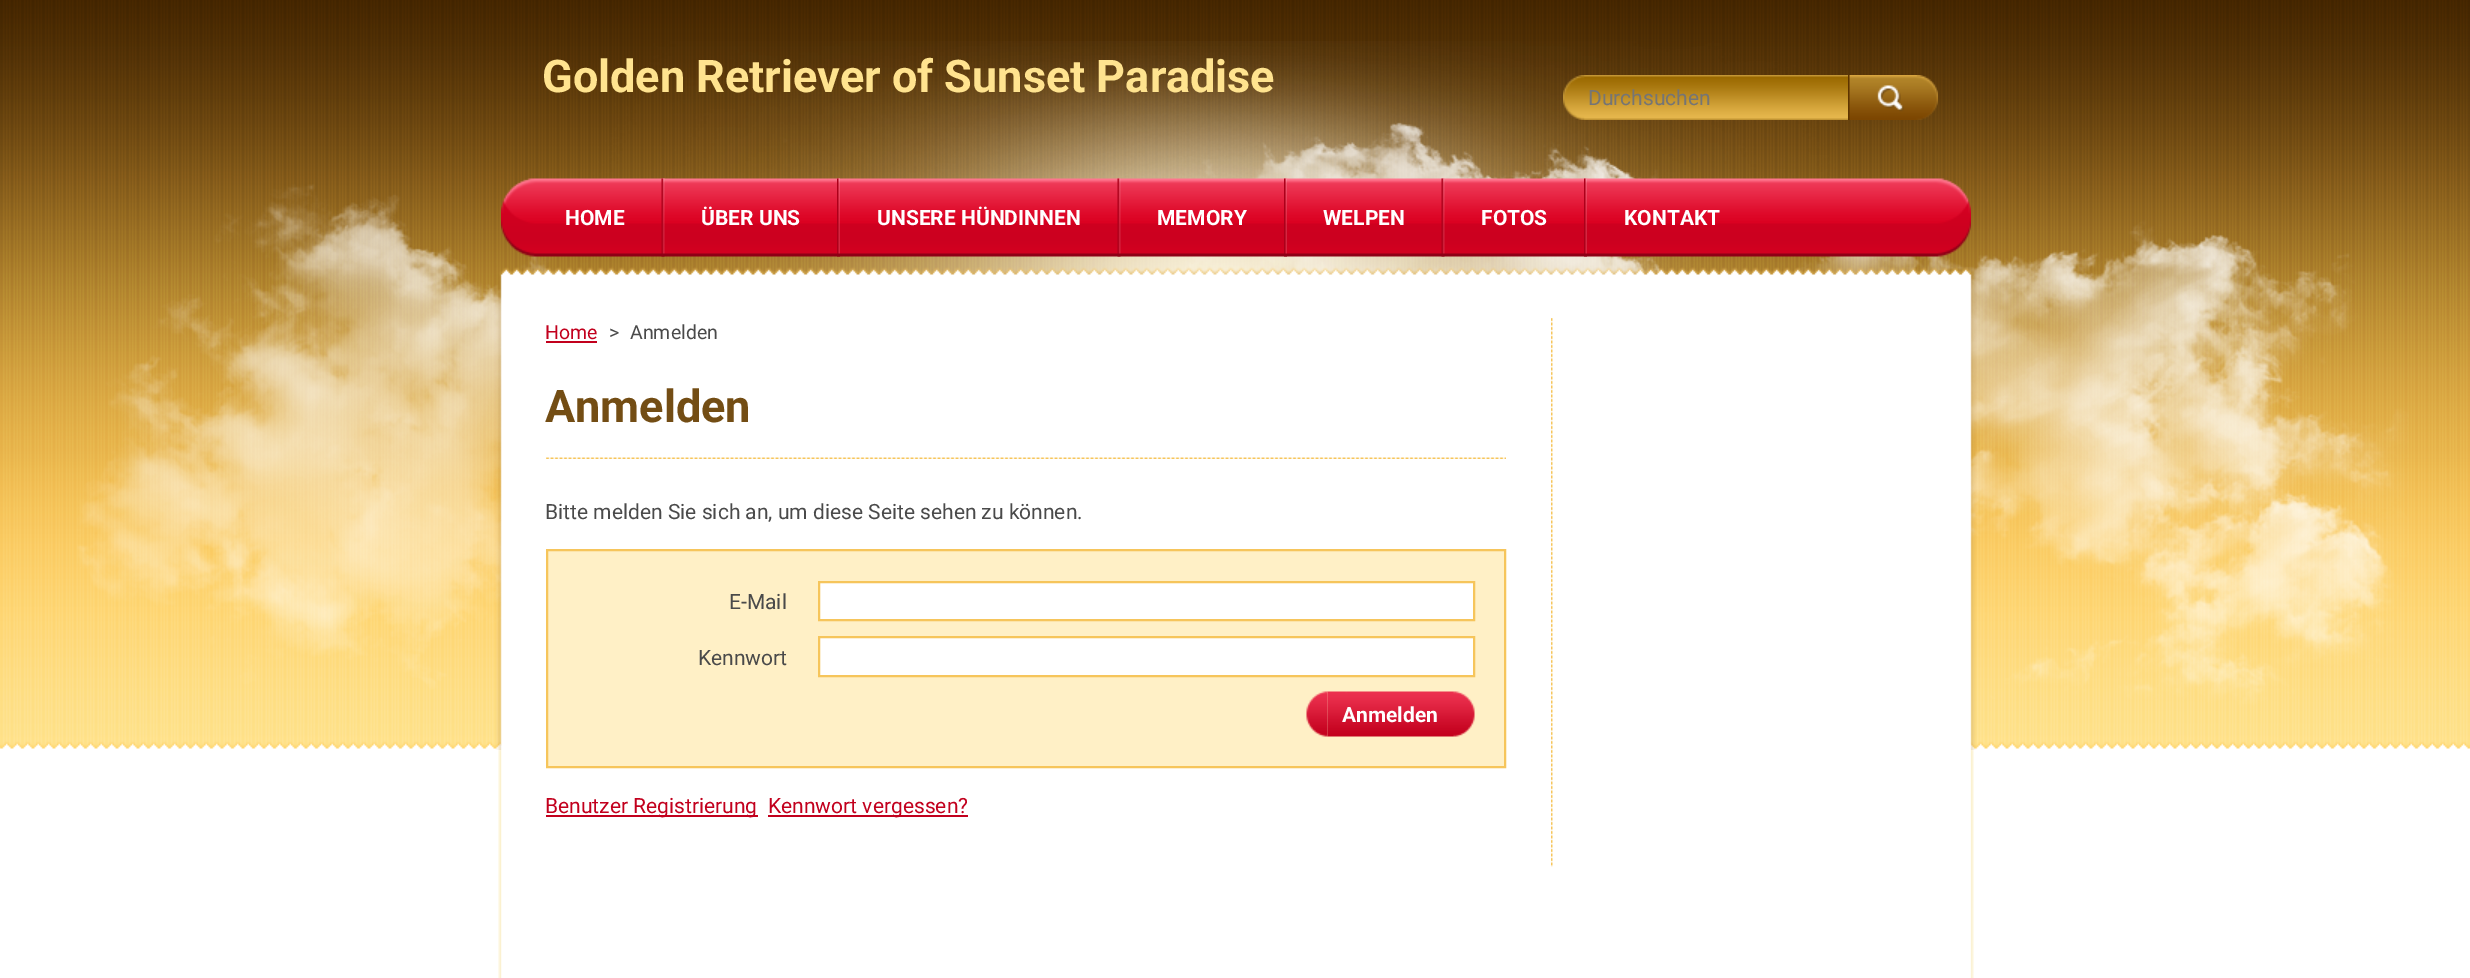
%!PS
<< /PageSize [2470 978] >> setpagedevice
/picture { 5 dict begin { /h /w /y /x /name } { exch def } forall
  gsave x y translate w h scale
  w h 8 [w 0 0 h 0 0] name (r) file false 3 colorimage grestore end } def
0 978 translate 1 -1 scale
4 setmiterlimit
1 setgray
0 0 2470 978 rectfill
(img1.rgb) 0 0 2470 749 picture
(img2.rgb) 77 41 2332 709 picture
/Roboto-Bold [45 0 0 -45 0 0] selectfont
1 0.89 0.561 setrgbcolor
542 92 moveto (Golden Retriever of Sunset Paradise) show
(img3.rgb) 1563 75 285 45 picture
/Roboto-Regular [21 0 0 -21 0 0] selectfont
0.459 setgray
1588 105 moveto (Durchsuchen) show
(img4.rgb) 1848 75 90 45 picture
(img5.rgb) 501 178 1470 79 picture
/Roboto-Bold [21 0 0 -21 0 0] selectfont
1 setgray
565 225 moveto (HOME) show
(img6.rgb) 661 178 4 79 picture
701 225 moveto (ÜBER UNS) show
(img7.rgb) 837 178 3 79 picture
877 225 moveto (UNSERE HÜNDINNEN) show
(img8.rgb) 1117 178 4 79 picture
1157 225 moveto (MEMORY) show
(img9.rgb) 1284 178 3 79 picture
1323 225 moveto (WELPEN) show
(img10.rgb) 1441 178 4 79 picture
1481 225 moveto (FOTOS) show
(img11.rgb) 1584 178 3 79 picture
1624 225 moveto (KONTAKT) show
(img12.rgb) 498 750 1476 228 picture
(img13.rgb) 1551 318 2 549 picture
/Roboto-Regular [19.5 0 0 -19.5 0 0] selectfont
0.761 0 0.114 setrgbcolor
545 339 moveto (Home) show
546 341 51 2 rectfill
0.29 setgray
609 339 moveto (>) show
630 339 moveto (Anmelden) show
(img14.rgb) 546 457 960 2 picture
/Roboto-Bold [45 0 0 -45 0 0] selectfont
0.451 0.302 0.078 setrgbcolor
545 422 moveto (Anmelden) show
/Roboto-Regular [21 0 0 -21 0 0] selectfont
0.29 setgray
545 519 moveto (Bitte melden Sie sich an, um diese Seite sehen zu können.) show
1 0.941 0.776 setrgbcolor
newpath 547 550 moveto 1505 550 lineto 1505 767 lineto 547 767 lineto closepath gsave fill grestore
0.965 0.773 0.357 setrgbcolor
2 setlinewidth
stroke
0.29 setgray
729 609 moveto (E-Mail) show
1 setgray
newpath 819 582 moveto 1474 582 lineto 1474 620 lineto 819 620 lineto closepath gsave fill grestore
0.965 0.773 0.357 setrgbcolor
stroke
0.29 setgray
698 665 moveto (Kennwort) show
1 setgray
newpath 819 637 moveto 1474 637 lineto 1474 676 lineto 819 676 lineto closepath gsave fill grestore
0.965 0.773 0.357 setrgbcolor
stroke
(img15.rgb) 1306 691 22 46 picture
(img16.rgb) 1327 691 148 46 picture
/Roboto-Bold [21 0 0 -21 0 0] selectfont
1 setgray
1342 722 moveto (Anmelden) show
0.761 0 0.114 setrgbcolor
546 815 212 2 rectfill
/Roboto-Regular [21 0 0 -21 0 0] selectfont
545 813 moveto (Benutzer Registrierung) show
768 815 200 2 rectfill
768 813 moveto (Kennwort vergessen?) show
showpage
